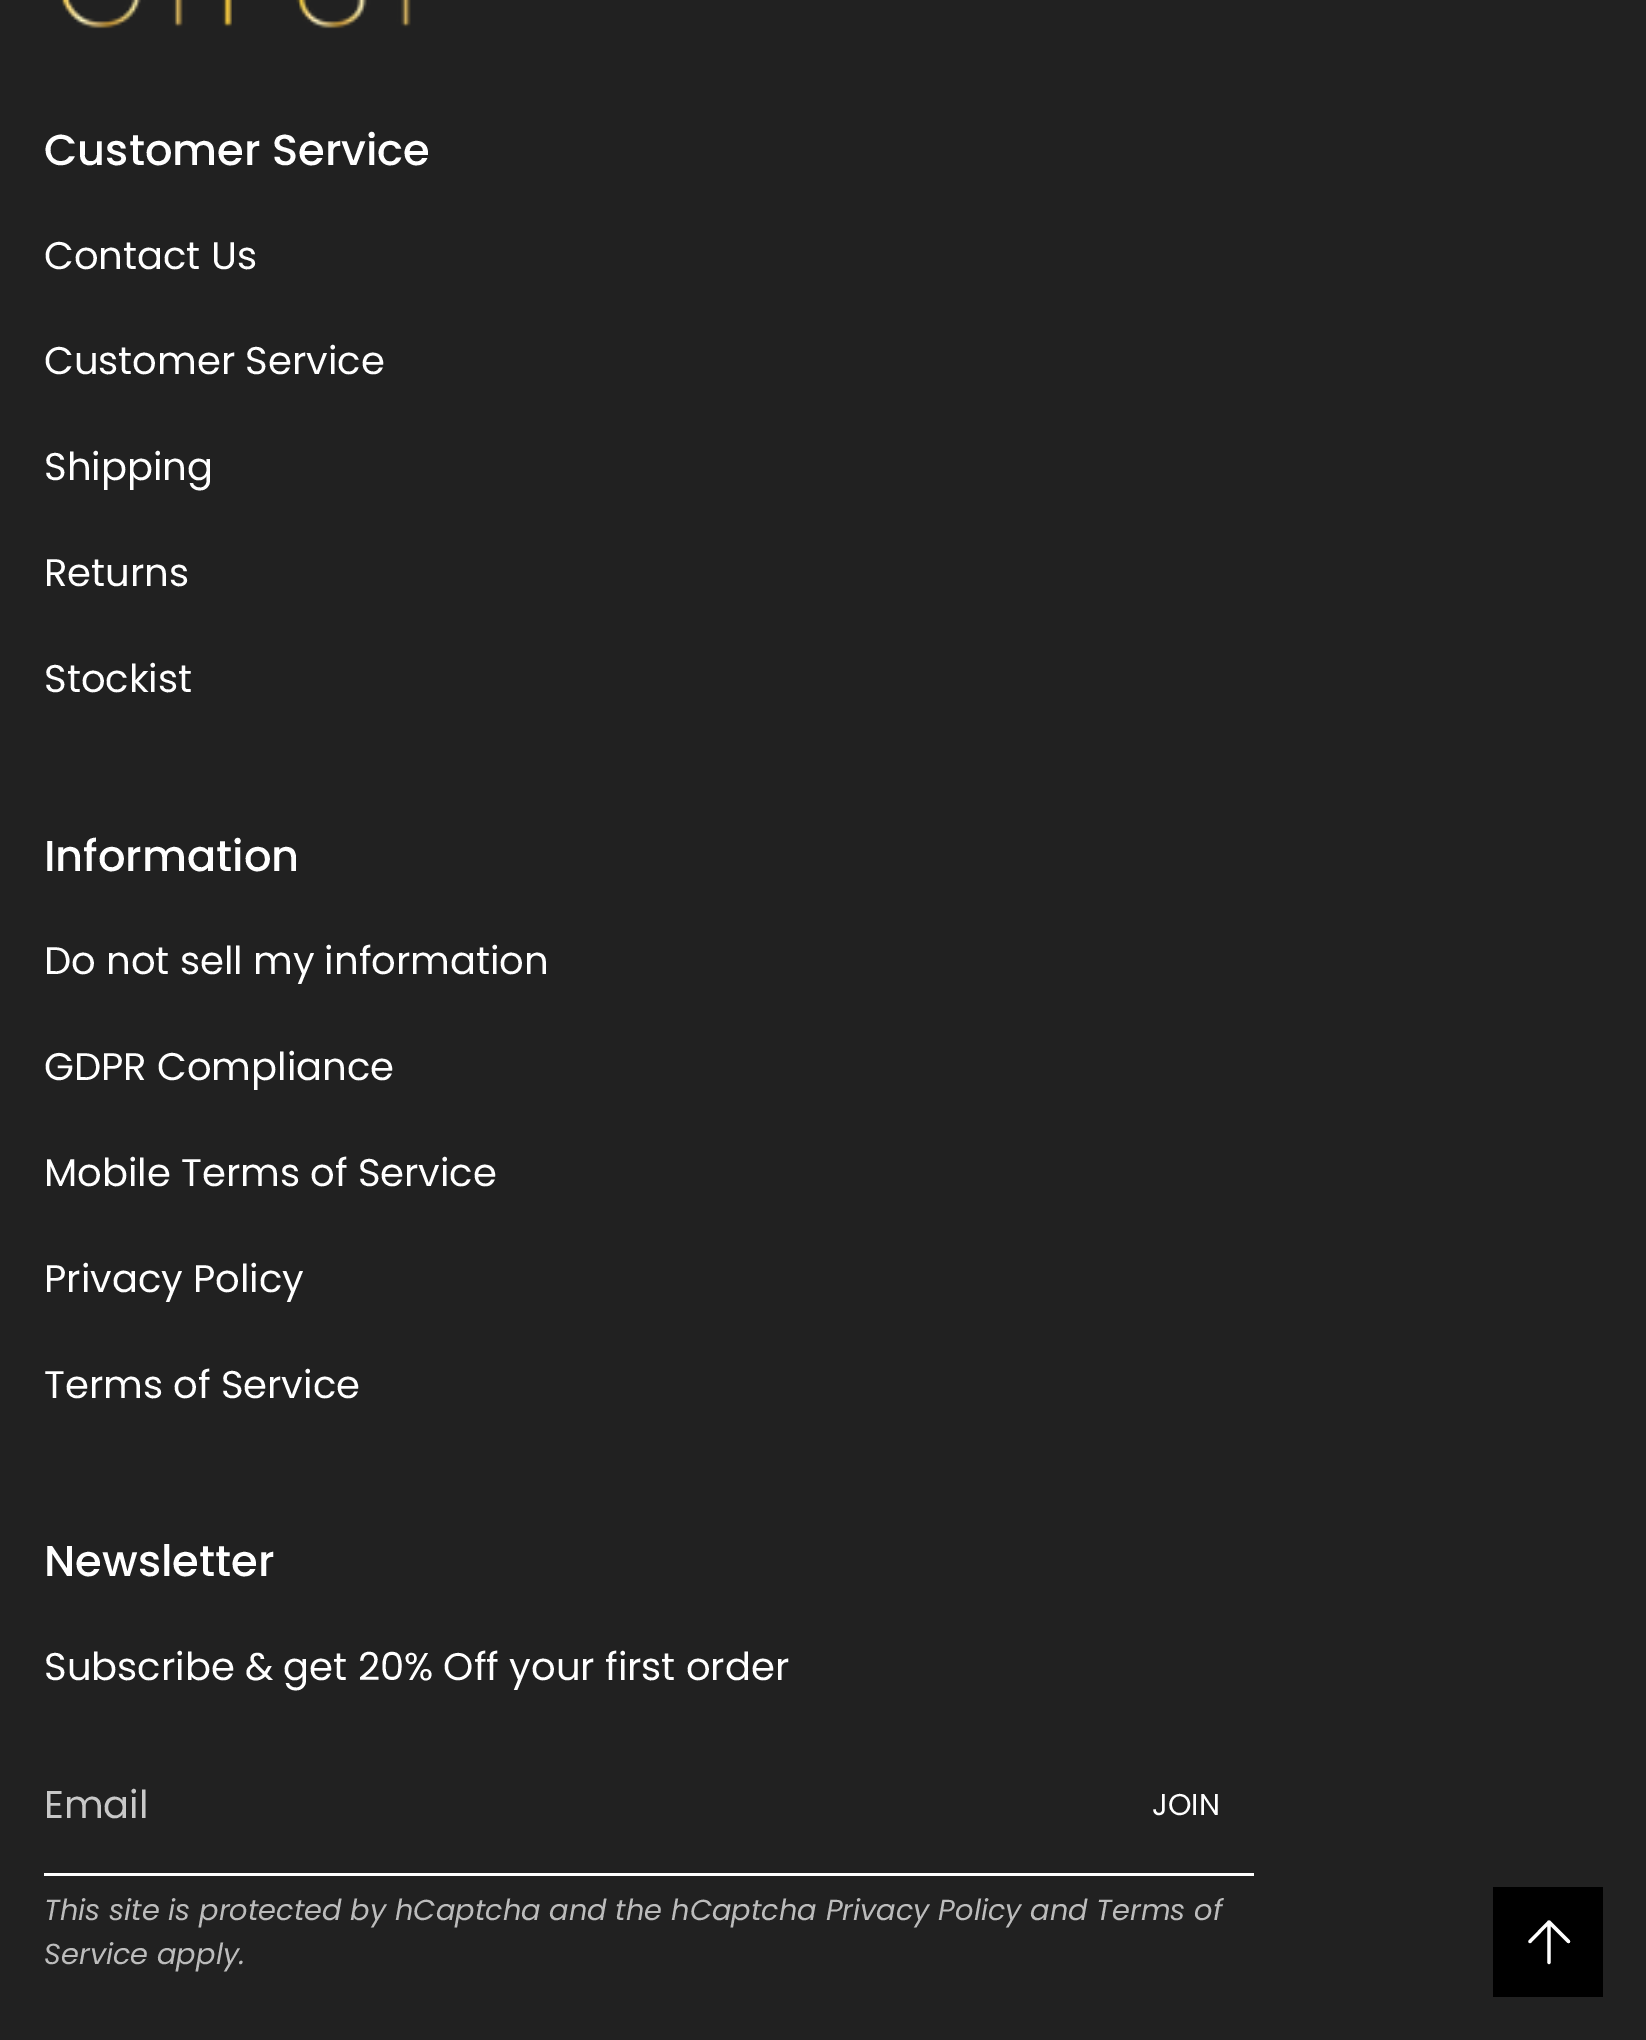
%!PS
<< /PageSize [1646 2040] >> setpagedevice
/picture { 5 dict begin { /h /w /y /x /name } { exch def } forall
  gsave x y translate w h scale
  w h 8 [w 0 0 h 0 0] name (r) file false 3 colorimage grestore end } def
0 2040 translate 1 -1 scale
4 setmiterlimit
0.129 setgray
0 0 1646 2040 rectfill
(img1.rgb) 60 0 351 29 picture
/Poppins-Medium [43.25 0 0 -43.25 0 0] selectfont
1 setgray
44 165 moveto (Customer Service) show
/Poppins-Regular [38.5 0 0 -38.5 0 0] selectfont
44 269 moveto (Contact Us) show
44 374 moveto (Customer Service) show
44 480 moveto (Shipping) show
44 586 moveto (Returns) show
44 692 moveto (Stockist) show
/Poppins-Medium [43.25 0 0 -43.25 0 0] selectfont
44 871 moveto (Information) show
/Poppins-Regular [38.5 0 0 -38.5 0 0] selectfont
44 974 moveto (Do not sell my information) show
44 1080 moveto (GDPR Compliance) show
44 1186 moveto (Mobile Terms of Service) show
44 1292 moveto (Privacy Policy) show
44 1398 moveto (Terms of Service) show
/Poppins-Medium [43.25 0 0 -43.25 0 0] selectfont
44 1576 moveto (Newsletter) show
/Poppins-Regular [38.5 0 0 -38.5 0 0] selectfont
44 1680 moveto (Subscribe & get 20% Off your first order) show
44 1873 1210 3 rectfill
0.784 setgray
44 1818 moveto (Email) show
/Poppins-Regular [30 0 0 -30 0 0] selectfont
1 setgray
1152 1815 moveto (JOIN) show
/Poppins-Italic [28.9 0 0 -28.9 0 0] selectfont
0.737 setgray
44 1920 moveto (This site is protected by hCaptcha and the hCaptcha Privacy Policy and Terms of) show
44 1964 moveto (Service apply.) show
0 setgray
1493 1887 110 110 rectfill
1 setgray
3.2 setlinewidth
1 setlinecap
1 setlinejoin
newpath 1549 1962.5 moveto 1549 1922 lineto 1549 1922 moveto 1568.5 1941.5 lineto 1549 1922 moveto 1530 1941.5 lineto stroke
showpage
